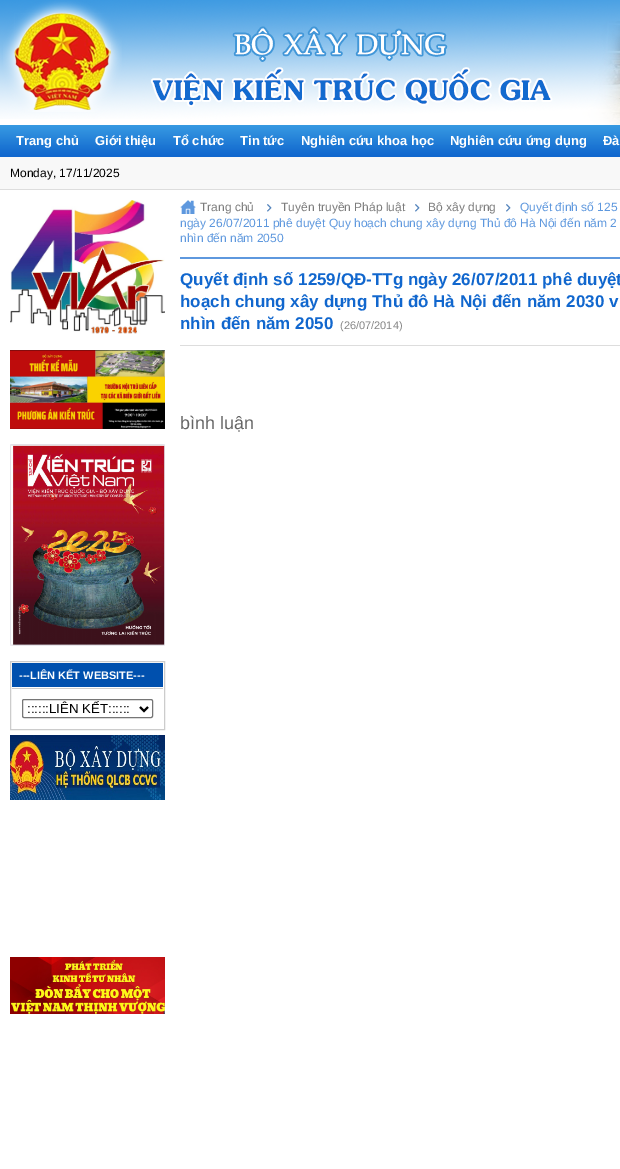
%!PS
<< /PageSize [620 1169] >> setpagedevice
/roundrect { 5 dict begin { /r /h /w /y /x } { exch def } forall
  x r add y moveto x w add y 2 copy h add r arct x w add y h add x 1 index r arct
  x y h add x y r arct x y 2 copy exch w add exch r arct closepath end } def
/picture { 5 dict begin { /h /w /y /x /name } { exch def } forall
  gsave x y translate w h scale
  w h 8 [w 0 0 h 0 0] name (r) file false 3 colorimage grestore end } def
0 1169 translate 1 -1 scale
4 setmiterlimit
1 setgray
0 0 620 1169 rectfill
(img1.rgb) 0 0 620 119 picture
(img2.rgb) 3 0 119 112 picture
(img3.rgb) 150 21 470 104 picture
(img4.rgb) 0 125 620 32 picture
/LiberationSans-Bold [13 0 0 -13 0 0] selectfont
16 145 moveto (Trang chủ) show
95 145 moveto (Giới thiệu) show
173 145 moveto (Tổ chức) show
240 145 moveto (Tin tức) show
301 145 moveto (Nghiên cứu khoa học) show
450 145 moveto (Nghiên cứu ứng dụng) show
603 145 moveto (Đà) show
0.973 setgray
0 157 620 32 rectfill
0.867 setgray
0 189 620 1 rectfill
/LiberationSans-Regular [12 0 0 -12 0 0] selectfont
0 setgray
10 177 moveto (Monday, 17/11/2025) show
0.369 0.596 0.871 setrgbcolor
180 257 440 2 rectfill
(img5.rgb) 180 200 16 14 picture
0.486 setgray
200 211 moveto (Trang chủ) show
(img6.rgb) 267 204 5 8 picture
281 211 moveto (Tuyên truyền Pháp luật) show
(img6.rgb) 415 204 5 8 picture
428 211 moveto (Bộ xây dựng) show
(img6.rgb) 506 204 5 8 picture
0.369 0.596 0.871 setrgbcolor
520 211 moveto (Quyết định số 125) show
180 227 moveto (ngày 26/07/2011 phê duyệt Quy hoạch chung xây dựng Thủ đô Hà Nội đến năm 2) show
180 242 moveto (nhìn đến năm 2050) show
0.867 setgray
180 345 440 1 rectfill
/LiberationSans-Bold [17 0 0 -17 0 0] selectfont
0.067 0.404 0.808 setrgbcolor
180 285 moveto (Quyết định số 1259/QĐ-TTg ngày 26/07/2011 phê duyệt) show
180 307 moveto (hoạch chung xây dựng Thủ đô Hà Nội đến năm 2030 v) show
180 329 moveto (nhìn đến năm 2050) show
/LiberationSans-Regular [11 0 0 -11 0 0] selectfont
0.529 setgray
340 329 moveto (\(26/07/2014\)) show
/LiberationSans-Regular [18 0 0 -18 0 0] selectfont
0.4 setgray
180 429 moveto (bình luận) show
(img7.rgb) 10 200 155 134 picture
(img8.rgb) 10 350 155 79 picture
(img9.rgb) 10 444 155 202 picture
0.8 setgray
10.5 661.5 154 68 rectstroke
0 0.314 0.682 setrgbcolor
12 663 151 24 rectfill
/LiberationSans-Bold [11 0 0 -11 0 0] selectfont
1 setgray
19 679 moveto (---LIÊN KẾT WEBSITE---) show
0.8 setgray
12 688 151 1 rectfill
0.463 setgray
22.5 699.5 130 18 1.5 roundrect stroke
0 setgray
2 setlinewidth
newpath 140 707 moveto 144 711 lineto 148 707 lineto stroke
/LiberationSans-Regular [13.25 0 0 -13.25 0 0] selectfont
27 713 moveto (::::::LIÊN KẾT::::::) show
(img10.rgb) 10 735 155 65 picture
(img11.rgb) 10 957 155 57 picture
showpage
